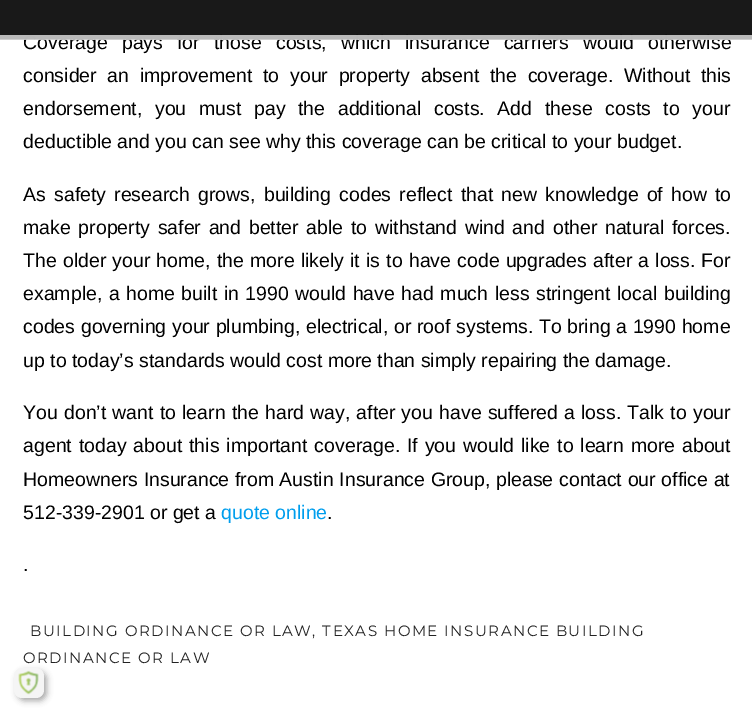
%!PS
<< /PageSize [752 711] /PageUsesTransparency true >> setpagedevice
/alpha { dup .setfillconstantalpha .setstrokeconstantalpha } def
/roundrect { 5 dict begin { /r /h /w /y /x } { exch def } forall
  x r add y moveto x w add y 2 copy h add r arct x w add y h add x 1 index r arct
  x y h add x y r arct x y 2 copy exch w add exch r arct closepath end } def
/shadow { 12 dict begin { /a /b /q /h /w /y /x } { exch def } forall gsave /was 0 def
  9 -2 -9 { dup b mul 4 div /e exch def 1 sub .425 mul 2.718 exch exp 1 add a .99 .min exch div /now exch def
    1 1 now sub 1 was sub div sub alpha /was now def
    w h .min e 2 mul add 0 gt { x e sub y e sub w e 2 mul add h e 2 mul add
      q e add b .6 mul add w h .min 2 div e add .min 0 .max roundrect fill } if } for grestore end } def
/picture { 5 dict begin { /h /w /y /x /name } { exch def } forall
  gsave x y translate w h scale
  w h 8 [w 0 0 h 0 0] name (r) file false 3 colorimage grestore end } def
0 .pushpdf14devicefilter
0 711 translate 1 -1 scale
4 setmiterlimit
1 setgray
0 0 752 711 rectfill
/LiberationSans-Regular [19.5 0 0 -19.5 0 0] selectfont
0 setgray
23 49 moveto 8.75 0 32 (Coverage pays for those costs, which insurance carriers would otherwise) widthshow
0.9 alpha
0 0 752 39 rectfill
0.8 setgray
0 35 752 5 rectfill
1 alpha
0 setgray
23 82 moveto 5.25 0 32 (consider an improvement to your property absent the coverage. Without this) widthshow
23 115 moveto 7.25 0 32 (endorsement, you must pay the additional costs. Add these costs to your) widthshow
23 148 moveto (deductible and you can see why this coverage can be critical to your budget.) show
23 201 moveto 2.75 0 32 (As safety research grows, building codes reflect that new knowledge of how to) widthshow
23 234 moveto 2.25 0 32 (make property safer and better able to withstand wind and other natural forces.) widthshow
23 267 moveto 0.75 0 32 (The older your home, the more likely it is to have code upgrades after a loss. For) widthshow
23 300 moveto 1.1 0 32 (example, a home built in 1990 would have had much less stringent local building) widthshow
23 333 moveto 0.25 0 32 (codes governing your plumbing, electrical, or roof systems. To bring a 1990 home) widthshow
23 367 moveto (up to today’s standards would cost more than simply repairing the damage.) show
23 419 moveto 0.75 0 32 (You don’t want to learn the hard way, after you have suffered a loss. Talk to your) widthshow
23 452 moveto 1.5 0 32 (agent today about this important coverage. If you would like to learn more about) widthshow
23 486 moveto 0.25 0 32 (Homeowners Insurance from Austin Insurance Group, please contact our office at) widthshow
23 519 moveto (512-339-2901 or get a) show
0 0.62 0.929 setrgbcolor
221 519 moveto (quote online) show
0 setgray
327 519 moveto (.) show
23 571 moveto (.) show
/Montserrat-Regular [15 0 0 -15 0 0] selectfont
0.133 setgray
30 636 moveto 1.5 0 (BUILDING ORDINANCE OR LAW, TEXAS HOME INSURANCE BUILDING) ashow
23 663 moveto 1.5 0 (ORDINANCE OR LAW) ashow
gsave
newpath 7 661 moveto 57 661 lineto 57 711 lineto 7 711 lineto closepath 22 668 moveto 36 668 lineto 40.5 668 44 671.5 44 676 curveto 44 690 lineto 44 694.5 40.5 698 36 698 curveto 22 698 lineto 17.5 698 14 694.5 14 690 curveto 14 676 lineto 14 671.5 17.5 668 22 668 curveto closepath eoclip newpath
0.302 setgray
17 671 30 30 8 3 0.47 shadow
grestore
0.99 alpha
0.961 setgray
14 668 30 30 8 roundrect fill
1 alpha
(img1.rgb) 18 670 21 25 picture
.poppdf14devicefilter showpage
